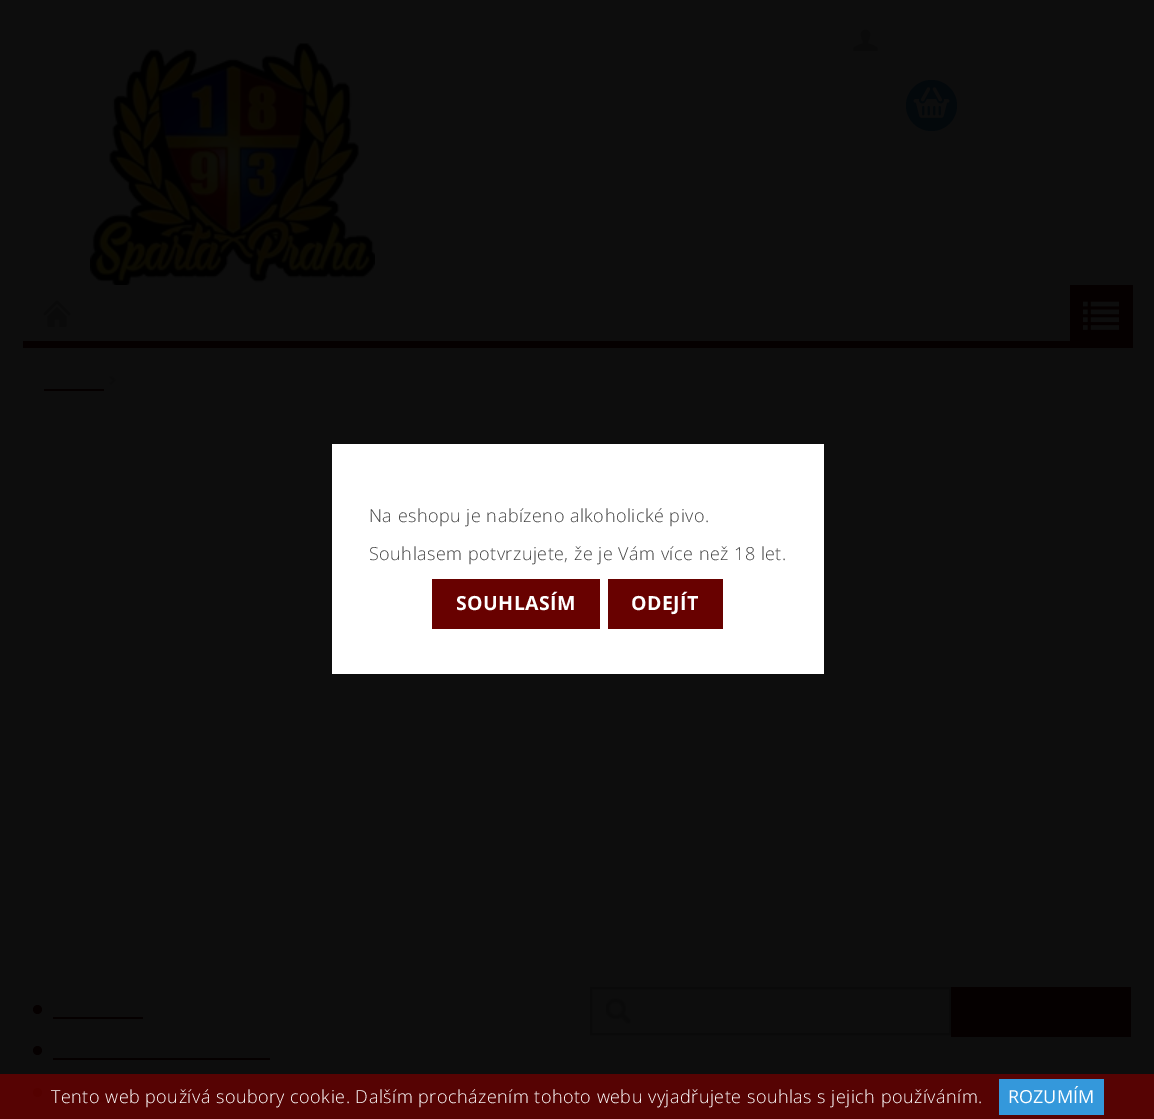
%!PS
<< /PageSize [1154 1119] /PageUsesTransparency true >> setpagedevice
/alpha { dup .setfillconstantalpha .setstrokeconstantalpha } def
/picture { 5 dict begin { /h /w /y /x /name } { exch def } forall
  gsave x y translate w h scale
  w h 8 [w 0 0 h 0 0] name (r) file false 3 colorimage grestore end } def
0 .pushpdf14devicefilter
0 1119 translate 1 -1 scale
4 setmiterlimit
0.051 setgray
0 0 1154 1119 rectfill
0.02 0 0 setrgbcolor
23 341 1047 7 rectfill
(img1.rgb) 90 43 285 242 picture
(img2.rgb) 853 29 25 22 picture
0.012 0.031 0.043 setrgbcolor
newpath 931.5 105.5 25.5 0 360 arc closepath fill
(img3.rgb) 913 87 37 31 picture
(img4.rgb) 43 300 28 27 picture
0.02 0 0 setrgbcolor
1070 285 63 63 rectfill
(img5.rgb) 1083 301 36 29 picture
(img6.rgb) 109 376 7 9 picture
44 389 60 2 rectfill
newpath 37.5 1009.5 4.5 0 360 arc closepath fill
53 1017 90 2 rectfill
newpath 37.5 1050.5 4.5 0 360 arc closepath fill
53 1058 217 2 rectfill
newpath 37.5 1092.5 4.5 0 360 arc closepath fill
53 1100 69 2 rectfill
(img7.rgb) 606 998 25 26 picture
0.039 setgray
2 setlinewidth
591 988 359 46 rectstroke
0.02 0 0 setrgbcolor
951 987 180 50 rectfill
1 setgray
332 444 492 230 rectfill
/OpenSans-Light [18 0 0 -18 0 0] selectfont
0.267 setgray
369 522 moveto 0.48 0 (Na eshopu je nabízeno alkoholické pivo.) ashow
369 560 moveto 0.48 0 (Souhlasem potvrzujete, že je Vám více než 18 let.) ashow
0.408 0.004 0 setrgbcolor
432 579 168 50 rectfill
/OpenSans-Bold [19.5 0 0 -19.5 0 0] selectfont
1 setgray
456 610 moveto 0.48 0 (SOUHLASÍM) ashow
0.408 0.004 0 setrgbcolor
608 579 115 50 rectfill
1 setgray
631 610 moveto 0.48 0 (ODEJÍT) ashow
0.8 alpha
0.408 0.004 0 setrgbcolor
0 1074 1154 45 rectfill
/OpenSans-Light [18 0 0 -18 0 0] selectfont
1 alpha
1 setgray
51 1103 moveto 0.48 0 (Tento web používá soubory cookie. Dalším procházením tohoto webu vyjadřujete souhlas s jejich používáním.) ashow
0.204 0.596 0.859 setrgbcolor
999 1079 105 36 rectfill
/OpenSans-Regular [18 0 0 -18 0 0] selectfont
1 setgray
1008 1103 moveto (ROZUMÍM) show
.poppdf14devicefilter showpage
